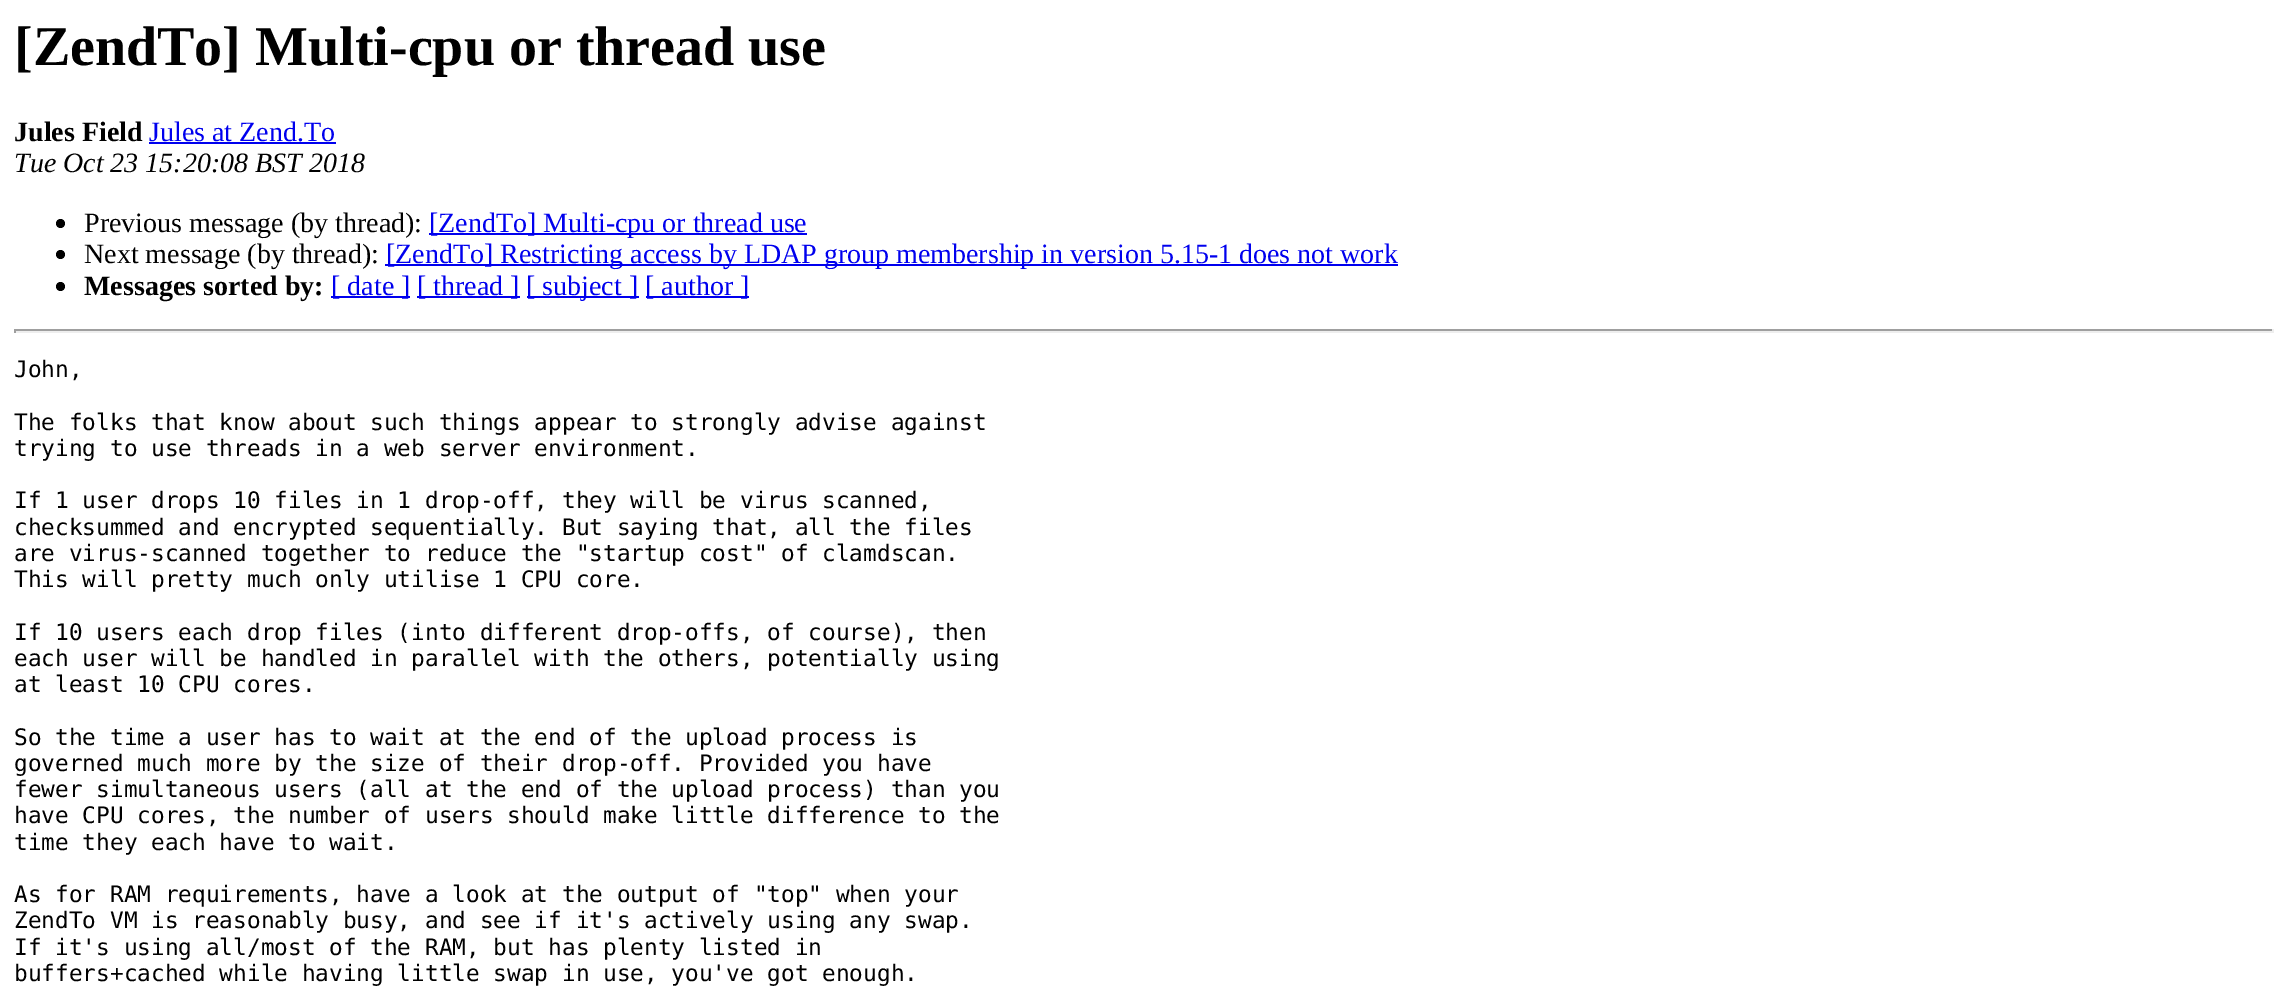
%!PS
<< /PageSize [2287 994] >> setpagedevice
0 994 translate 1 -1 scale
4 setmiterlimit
1 setgray
0 0 2287 994 rectfill
/LiberationSerif-Bold [56 0 0 -56 0 0] selectfont
0 setgray
14 65 moveto ([ZendTo] Multi-cpu or thread use) show
/LiberationSerif-Bold [28 0 0 -28 0 0] selectfont
14 141 moveto (Jules Field) show
/LiberationSerif-Regular [28 0 0 -28 0 0] selectfont
0 0 0.933 setrgbcolor
149 141 moveto (Jules at Zend.To) show
149 142 187 2 rectfill
/LiberationSerif-Italic [28 0 0 -28 0 0] selectfont
0 setgray
14 172 moveto (Tue Oct 23 15:20:08 BST 2018) show
newpath 60.5 223.5 4.5 0 360 arc closepath fill
/LiberationSerif-Regular [28 0 0 -28 0 0] selectfont
84 232 moveto (Previous message \(by thread\):) show
0 0 0.933 setrgbcolor
429 233 378 2 rectfill
429 232 moveto ([ZendTo] Multi-cpu or thread use) show
0 setgray
newpath 60.5 254.5 4.5 0 360 arc closepath fill
84 263 moveto (Next message \(by thread\):) show
0 0 0.933 setrgbcolor
385 264 1013 2 rectfill
386 263 moveto ([ZendTo] Restricting access by LDAP group membership in version 5.15-1 does not work) show
0 setgray
newpath 60.5 286.5 4.5 0 360 arc closepath fill
/LiberationSerif-Bold [28 0 0 -28 0 0] selectfont
84 295 moveto (Messages sorted by:) show
0 0 0.933 setrgbcolor
331 296 79 2 rectfill
/LiberationSerif-Regular [28 0 0 -28 0 0] selectfont
331 295 moveto ([ date ]) show
417 296 103 2 rectfill
417 295 moveto ([ thread ]) show
527 296 112 2 rectfill
526 295 moveto ([ subject ]) show
646 296 103 2 rectfill
645 295 moveto ([ author ]) show
0.624 setgray
14 329 2259 2 rectfill
0.933 setgray
2272 329 2 4 rectfill
14 331 2259 2 rectfill
0.624 setgray
14 329 2 4 rectfill
/DejaVuSansMono-Regular [22.75 0 0 -22.75 0 0] selectfont
0 setgray
14 377 moveto (John,) show
14 430 moveto (The folks that know about such things appear to strongly advise against) show
14 456 moveto (trying to use threads in a web server environment.) show
14 508 moveto (If 1 user drops 10 files in 1 drop-off, they will be virus scanned,) show
14 535 moveto (checksummed and encrypted sequentially. But saying that, all the files) show
14 561 moveto (are virus-scanned together to reduce the "startup cost" of clamdscan.) show
14 587 moveto (This will pretty much only utilise 1 CPU core.) show
14 640 moveto (If 10 users each drop files \(into different drop-offs, of course\), then) show
14 666 moveto (each user will be handled in parallel with the others, potentially using) show
14 692 moveto (at least 10 CPU cores.) show
14 745 moveto (So the time a user has to wait at the end of the upload process is) show
14 771 moveto (governed much more by the size of their drop-off. Provided you have) show
14 797 moveto (fewer simultaneous users \(all at the end of the upload process\) than you) show
14 823 moveto (have CPU cores, the number of users should make little difference to the) show
14 850 moveto (time they each have to wait.) show
14 902 moveto (As for RAM requirements, have a look at the output of "top" when your) show
14 928 moveto (ZendTo VM is reasonably busy, and see if it's actively using any swap.) show
14 955 moveto (If it's using all/most of the RAM, but has plenty listed in) show
14 981 moveto (buffers+cached while having little swap in use, you've got enough.) show
showpage
